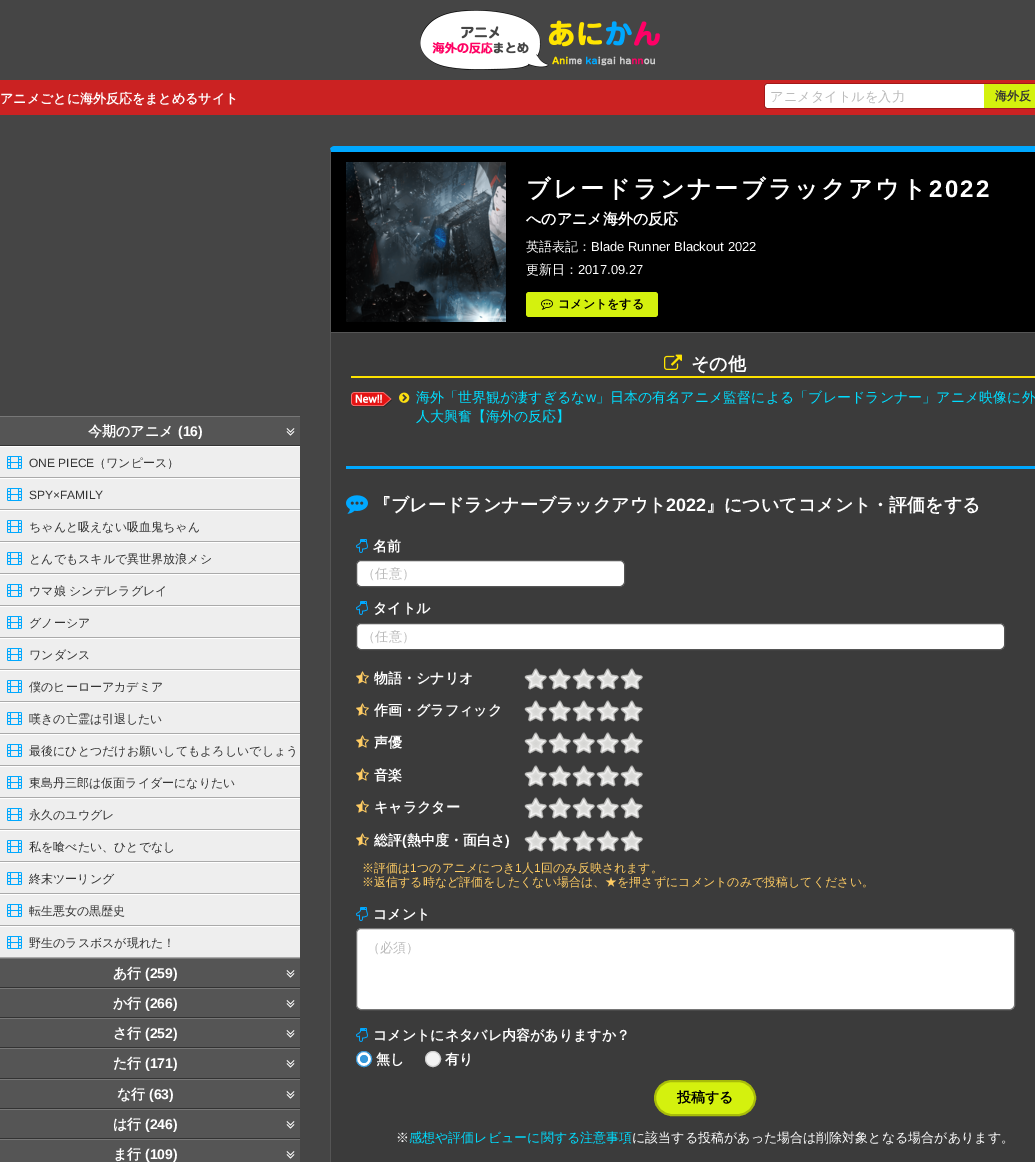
%!PS
<< /PageSize [1035 1162] >> setpagedevice
/roundrect { 5 dict begin { /r /h /w /y /x } { exch def } forall
  x r add y moveto x w add y 2 copy h add r arct x w add y h add x 1 index r arct
  x y h add x y r arct x y 2 copy exch w add exch r arct closepath end } def
/picture { 5 dict begin { /h /w /y /x /name } { exch def } forall
  gsave x y translate w h scale
  w h 8 [w 0 0 h 0 0] name (r) file false 3 colorimage grestore end } def
0 1162 translate 1 -1 scale
4 setmiterlimit
0.271 setgray
0 0 1035 1162 rectfill
0.796 0.133 0.133 setrgbcolor
0 80 1035 35 rectfill
(img1.rgb) 420 10 240 60 picture
/WenQuanYiZenHei-Bold [13 0 0 -13 0 0] selectfont
1 setgray
0 103 moveto (アニメごとに海外反応をまとめるサイト) show
newpath 767 83 moveto 984 83 lineto 984 109 lineto 767 109 lineto 765.5 109 764 107.5 764 106 curveto 764 86 lineto 764 84.5 765.5 83 767 83 curveto closepath fill
0.639 0.098 0.098 setrgbcolor
newpath 767 83 moveto 984 83 lineto 984 109 lineto 767 109 lineto 765 109 764 108 764 106 curveto 764 86 lineto 764 84 765 83 767 83 curveto closepath 767 84 moveto 984 84 lineto 984 108 lineto 767 108 lineto 766 108 765 107 765 106 curveto 765 86 lineto 765 85 766 84 767 84 curveto closepath eofill
/WenQuanYiZenHei-Medium [13.25 0 0 -13.25 0 0] selectfont
0.733 setgray
770 101 moveto (アニメタイトルを入力) show
0.831 0.945 0.055 setrgbcolor
984 84 51 24 rectfill
0.639 0.098 0.098 setrgbcolor
newpath 984 83 moveto 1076 83 lineto 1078 83 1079 84 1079 86 curveto 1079 106 lineto 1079 108 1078 109 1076 109 curveto 984 109 lineto closepath 984 84 moveto 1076 84 lineto 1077 84 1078 85 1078 86 curveto 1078 106 lineto 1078 107 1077 108 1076 108 curveto 984 108 lineto closepath eofill
/WenQuanYiZenHei-Bold [12 0 0 -12 0 0] selectfont
0.2 setgray
995 100 moveto (海外反) show
0.333 setgray
0 417 300 28 rectfill
0.467 setgray
0 416 300 1 rectfill
0.2 setgray
0 445 300 1 rectfill
/WenQuanYiZenHei-Bold [14 0 0 -14 0 0] selectfont
1 setgray
88 436 moveto (今期のアニメ) show
/LiberationSans-Bold [14 0 0 -14 0 0] selectfont
178 436 moveto (\(16\)) show
(img2.rgb) 286 428 9 8 picture
0.933 setgray
0 447 300 30 rectfill
1 setgray
0 446 300 1 rectfill
0.667 setgray
0 477 300 1 rectfill
(img3.rgb) 7 456 15 13 picture
/LiberationSans-Regular [12 0 0 -12 0 0] selectfont
0.2 setgray
29 467 moveto (ONE PIECE) show
/WenQuanYiZenHei-Medium [12 0 0 -12 0 0] selectfont
94 467 moveto (（ワンピース）) show
0.933 setgray
0 479 300 30 rectfill
1 setgray
0 478 300 1 rectfill
0.667 setgray
0 509 300 1 rectfill
(img3.rgb) 7 488 15 13 picture
/LiberationSans-Regular [12 0 0 -12 0 0] selectfont
0.2 setgray
29 499 moveto (SPY×FAMILY) show
0.933 setgray
0 511 300 30 rectfill
1 setgray
0 510 300 1 rectfill
0.667 setgray
0 541 300 1 rectfill
(img3.rgb) 7 520 15 13 picture
/WenQuanYiZenHei-Medium [12 0 0 -12 0 0] selectfont
0.2 setgray
29 531 moveto (ちゃんと吸えない吸血鬼ちゃん) show
0.933 setgray
0 543 300 30 rectfill
1 setgray
0 542 300 1 rectfill
0.667 setgray
0 573 300 1 rectfill
(img3.rgb) 7 552 15 13 picture
0.2 setgray
29 563 moveto (とんでもスキルで異世界放浪メシ) show
0.933 setgray
0 575 300 30 rectfill
1 setgray
0 574 300 1 rectfill
0.667 setgray
0 605 300 1 rectfill
(img3.rgb) 7 584 15 13 picture
0.2 setgray
29 595 moveto (ウマ娘 シンデレラグレイ) show
0.933 setgray
0 607 300 30 rectfill
1 setgray
0 606 300 1 rectfill
0.667 setgray
0 637 300 1 rectfill
(img3.rgb) 7 616 15 13 picture
0.2 setgray
29 627 moveto (グノーシア) show
0.933 setgray
0 639 300 30 rectfill
1 setgray
0 638 300 1 rectfill
0.667 setgray
0 669 300 1 rectfill
(img3.rgb) 7 648 15 13 picture
0.2 setgray
29 659 moveto (ワンダンス) show
0.933 setgray
0 671 300 30 rectfill
1 setgray
0 670 300 1 rectfill
0.667 setgray
0 701 300 1 rectfill
(img3.rgb) 7 680 15 13 picture
0.2 setgray
29 691 moveto (僕のヒーローアカデミア) show
0.933 setgray
0 703 300 30 rectfill
1 setgray
0 702 300 1 rectfill
0.667 setgray
0 733 300 1 rectfill
(img3.rgb) 7 712 15 13 picture
0.2 setgray
29 723 moveto (嘆きの亡霊は引退したい) show
0.933 setgray
0 735 300 30 rectfill
1 setgray
0 734 300 1 rectfill
0.667 setgray
0 765 300 1 rectfill
(img3.rgb) 7 744 15 13 picture
0.2 setgray
29 755 moveto (最後にひとつだけお願いしてもよろしいでしょう) show
0.933 setgray
0 767 300 30 rectfill
1 setgray
0 766 300 1 rectfill
0.667 setgray
0 797 300 1 rectfill
(img3.rgb) 7 776 15 13 picture
0.2 setgray
29 787 moveto (東島丹三郎は仮面ライダーになりたい) show
0.933 setgray
0 799 300 30 rectfill
1 setgray
0 798 300 1 rectfill
0.667 setgray
0 829 300 1 rectfill
(img3.rgb) 7 808 15 13 picture
0.2 setgray
29 819 moveto (永久のユウグレ) show
0.933 setgray
0 831 300 30 rectfill
1 setgray
0 830 300 1 rectfill
0.667 setgray
0 861 300 1 rectfill
(img3.rgb) 7 840 15 13 picture
0.2 setgray
29 851 moveto (私を喰べたい、ひとでなし) show
0.933 setgray
0 863 300 30 rectfill
1 setgray
0 862 300 1 rectfill
0.667 setgray
0 893 300 1 rectfill
(img3.rgb) 7 872 15 13 picture
0.2 setgray
29 883 moveto (終末ツーリング) show
0.933 setgray
0 895 300 30 rectfill
1 setgray
0 894 300 1 rectfill
0.667 setgray
0 925 300 1 rectfill
(img3.rgb) 7 904 15 13 picture
0.2 setgray
29 915 moveto (転生悪女の黒歴史) show
0.933 setgray
0 927 300 30 rectfill
1 setgray
0 926 300 1 rectfill
0.667 setgray
0 957 300 1 rectfill
(img3.rgb) 7 936 15 13 picture
0.2 setgray
29 947 moveto (野生のラスボスが現れた！) show
0.333 setgray
0 959 300 28 rectfill
0.467 setgray
0 958 300 1 rectfill
0.2 setgray
0 987 300 1 rectfill
/WenQuanYiZenHei-Bold [14 0 0 -14 0 0] selectfont
1 setgray
113 978 moveto (あ行) show
/LiberationSans-Bold [14 0 0 -14 0 0] selectfont
145 978 moveto (\(259\)) show
(img2.rgb) 286 970 9 8 picture
0.333 setgray
0 989 300 28 rectfill
0.467 setgray
0 988 300 1 rectfill
0.2 setgray
0 1017 300 1 rectfill
/WenQuanYiZenHei-Bold [14 0 0 -14 0 0] selectfont
1 setgray
113 1008 moveto (か行) show
/LiberationSans-Bold [14 0 0 -14 0 0] selectfont
145 1008 moveto (\(266\)) show
(img2.rgb) 286 1000 9 8 picture
0.333 setgray
0 1019 300 28 rectfill
0.467 setgray
0 1018 300 1 rectfill
0.2 setgray
0 1047 300 1 rectfill
/WenQuanYiZenHei-Bold [14 0 0 -14 0 0] selectfont
1 setgray
113 1038 moveto (さ行) show
/LiberationSans-Bold [14 0 0 -14 0 0] selectfont
145 1038 moveto (\(252\)) show
(img2.rgb) 286 1030 9 8 picture
0.333 setgray
0 1049 300 29 rectfill
0.467 setgray
0 1048 300 1 rectfill
0.2 setgray
0 1078 300 1 rectfill
/WenQuanYiZenHei-Bold [14 0 0 -14 0 0] selectfont
1 setgray
113 1068 moveto (た行) show
/LiberationSans-Bold [14 0 0 -14 0 0] selectfont
145 1068 moveto (\(171\)) show
(img2.rgb) 286 1060 9 8 picture
0.333 setgray
0 1080 300 28 rectfill
0.467 setgray
0 1079 300 1 rectfill
0.2 setgray
0 1108 300 1 rectfill
/WenQuanYiZenHei-Bold [14 0 0 -14 0 0] selectfont
1 setgray
117 1099 moveto (な行) show
/LiberationSans-Bold [14 0 0 -14 0 0] selectfont
149 1099 moveto (\(63\)) show
(img2.rgb) 286 1091 9 8 picture
0.333 setgray
0 1110 300 28 rectfill
0.467 setgray
0 1109 300 1 rectfill
0.2 setgray
0 1138 300 1 rectfill
/WenQuanYiZenHei-Bold [14 0 0 -14 0 0] selectfont
1 setgray
113 1129 moveto (は行) show
/LiberationSans-Bold [14 0 0 -14 0 0] selectfont
145 1129 moveto (\(246\)) show
(img2.rgb) 286 1121 9 8 picture
0.333 setgray
0 1140 300 22 rectfill
0.467 setgray
0 1139 300 1 rectfill
/WenQuanYiZenHei-Bold [14 0 0 -14 0 0] selectfont
1 setgray
113 1159 moveto (ま行) show
/LiberationSans-Bold [14 0 0 -14 0 0] selectfont
145 1159 moveto (\(109\)) show
(img2.rgb) 286 1151 9 8 picture
0.231 setgray
newpath 335 152 moveto 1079 152 lineto 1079 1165 lineto 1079 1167 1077 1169 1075 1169 curveto 335 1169 lineto 333 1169 331 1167 331 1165 curveto 331 152 lineto closepath fill
0 0.659 1 setrgbcolor
newpath 335 146 moveto 333 146 331 147 330 149 curveto 331 152 lineto 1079 152 lineto 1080 149 lineto 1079 147 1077 146 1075 146 curveto closepath fill
0.333 setgray
newpath 330 151 moveto 330 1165 lineto 330 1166 330 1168 331 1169 curveto 332 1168 lineto 332 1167 331 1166 331 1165 curveto 331 152 lineto 330 149 lineto closepath fill
0 setgray
331 152 704 180 rectfill
0.333 setgray
331 332 704 1 rectfill
(img4.rgb) 346 162 160 160 picture
/WenQuanYiZenHei-Bold [24 0 0 -24 0 0] selectfont
1 setgray
526 197 moveto 2.4 0 (ブレードランナーブラックアウト) ashow
/LiberationSans-Bold [24 0 0 -24 0 0] selectfont
929 197 moveto 2.4 0 (2022) ashow
/WenQuanYiZenHei-Bold [15 0 0 -15 0 0] selectfont
526 224 moveto (へのアニメ海外の反応) show
/WenQuanYiZenHei-Medium [13 0 0 -13 0 0] selectfont
526 251 moveto (英語表記：) show
/LiberationSans-Regular [13 0 0 -13 0 0] selectfont
591 251 moveto (Blade Runner Blackout 2022) show
/WenQuanYiZenHei-Medium [13 0 0 -13 0 0] selectfont
526 274 moveto (更新日：) show
/LiberationSans-Regular [13 0 0 -13 0 0] selectfont
578 274 moveto (2017.09.27) show
0.831 0.945 0.055 setrgbcolor
526 292 132 25 3 roundrect fill
(img5.rgb) 541 299 12 11 picture
/WenQuanYiZenHei-Bold [12 0 0 -12 0 0] selectfont
0 setgray
558 308 moveto (コメントをする) show
0.996 0.89 0 setrgbcolor
351 376 684 2 rectfill
(img6.rgb) 664 354 18 16 picture
/WenQuanYiZenHei-Bold [18 0 0 -18 0 0] selectfont
1 setgray
691 370 moveto (その他) show
(img7.rgb) 351 392 41 15 picture
(img8.rgb) 399 392 11 11 picture
/WenQuanYiZenHei-Medium [14 0 0 -14 0 0] selectfont
0 0.867 1 setrgbcolor
416 402 moveto (海外「世界観が凄すぎるな) show
/LiberationSans-Regular [14 0 0 -14 0 0] selectfont
586 402 moveto (w) show
/WenQuanYiZenHei-Medium [14 0 0 -14 0 0] selectfont
596 402 moveto (」日本の有名アニメ監督による「ブレードランナー」アニメ映像に外) show
416 421 moveto (人大興奮【海外の反応】) show
0 0.659 1 setrgbcolor
346 466 689 3 rectfill
(img9.rgb) 346 495 22 19 picture
/WenQuanYiZenHei-Bold [18 0 0 -18 0 0] selectfont
1 setgray
373 511 moveto (『ブレードランナーブラックアウト) show
/LiberationSans-Bold [18 0 0 -18 0 0] selectfont
666 511 moveto (2022) show
/WenQuanYiZenHei-Bold [18 0 0 -18 0 0] selectfont
706 511 moveto (』についてコメント・評価をする) show
(img10.rgb) 356 539 12 14 picture
/WenQuanYiZenHei-Bold [14 0 0 -14 0 0] selectfont
373 551 moveto (名前) show
356.5 560.5 268 26 4.5 roundrect gsave fill grestore
0.333 setgray
stroke
/WenQuanYiZenHei-Medium [13.25 0 0 -13.25 0 0] selectfont
0.733 setgray
362 578 moveto (（任意）) show
(img10.rgb) 356 601 12 14 picture
/WenQuanYiZenHei-Bold [14 0 0 -14 0 0] selectfont
1 setgray
373 613 moveto (タイトル) show
356.5 623.5 648 26 4.5 roundrect gsave fill grestore
0.333 setgray
stroke
/WenQuanYiZenHei-Medium [13.25 0 0 -13.25 0 0] selectfont
0.733 setgray
362 641 moveto (（任意）) show
(img11.rgb) 356 671 13 13 picture
/WenQuanYiZenHei-Bold [14 0 0 -14 0 0] selectfont
1 setgray
374 683 moveto (物語・シナリオ) show
(img12.rgb) 524 668 119 22 picture
(img11.rgb) 356 703 13 13 picture
374 715 moveto (作画・グラフィック) show
(img12.rgb) 524 700 119 22 picture
(img11.rgb) 356 735 13 13 picture
374 747 moveto (声優) show
(img12.rgb) 524 732 119 22 picture
(img11.rgb) 356 768 13 13 picture
374 780 moveto (音楽) show
(img12.rgb) 524 765 119 22 picture
(img11.rgb) 356 800 13 13 picture
374 812 moveto (キャラクター) show
(img12.rgb) 524 797 119 22 picture
(img11.rgb) 356 833 13 13 picture
374 845 moveto (総評) show
/LiberationSans-Bold [14 0 0 -14 0 0] selectfont
402 845 moveto (\() show
/WenQuanYiZenHei-Bold [14 0 0 -14 0 0] selectfont
407 845 moveto (熱中度・面白さ) show
/LiberationSans-Bold [14 0 0 -14 0 0] selectfont
505 845 moveto (\)) show
(img12.rgb) 524 830 119 22 picture
/WenQuanYiZenHei-Medium [12 0 0 -12 0 0] selectfont
1 0.8 0.388 setrgbcolor
362 872 moveto (※評価は) show
/LiberationSans-Regular [12 0 0 -12 0 0] selectfont
410 872 moveto (1) show
/WenQuanYiZenHei-Medium [12 0 0 -12 0 0] selectfont
417 872 moveto (つのアニメにつき) show
/LiberationSans-Regular [12 0 0 -12 0 0] selectfont
515 872 moveto (1) show
/WenQuanYiZenHei-Medium [12 0 0 -12 0 0] selectfont
522 872 moveto (人) show
/LiberationSans-Regular [12 0 0 -12 0 0] selectfont
534 872 moveto (1) show
/WenQuanYiZenHei-Medium [12 0 0 -12 0 0] selectfont
541 872 moveto (回のみ反映されます。) show
362 886 moveto (※返信する時など評価をしたくない場合は、★を押さずにコメントのみで投稿してください。) show
(img10.rgb) 356 907 12 14 picture
/WenQuanYiZenHei-Bold [14 0 0 -14 0 0] selectfont
1 setgray
373 919 moveto (コメント) show
356.5 928.5 658 81 4.5 roundrect gsave fill grestore
0.463 setgray
stroke
/WenQuanYiZenHei-Medium [13 0 0 -13 0 0] selectfont
0.733 setgray
367 952 moveto (（必須）) show
(img10.rgb) 356 1028 12 14 picture
/WenQuanYiZenHei-Bold [14 0 0 -14 0 0] selectfont
1 setgray
373 1040 moveto (コメントにネタバレ内容がありますか？) show
newpath 364 1059 7.5 0 360 arc closepath gsave fill grestore
0.204 0.596 0.859 setrgbcolor
stroke
1 setgray
376 1064 moveto (無し) show
0.204 0.596 0.859 setrgbcolor
newpath 364 1059 4 0 360 arc closepath fill
0.953 setgray
newpath 433 1059 7.5 0 360 arc closepath gsave fill grestore
0.8 setgray
stroke
1 setgray
445 1064 moveto (有り) show
0.831 0.945 0.055 setrgbcolor
655 1081 100 34 17 roundrect gsave fill grestore
0.659 0.737 0.039 setrgbcolor
2 setlinewidth
stroke
0 setgray
677 1102 moveto (投稿する) show
/WenQuanYiZenHei-Medium [13 0 0 -13 0 0] selectfont
1 setgray
396 1142 moveto (※) show
0 0.867 1 setrgbcolor
409 1142 moveto (感想や評価レビューに関する注意事項) show
1 setgray
632 1142 moveto (に該当する投稿があった場合は削除対象となる場合があります。) show
showpage
